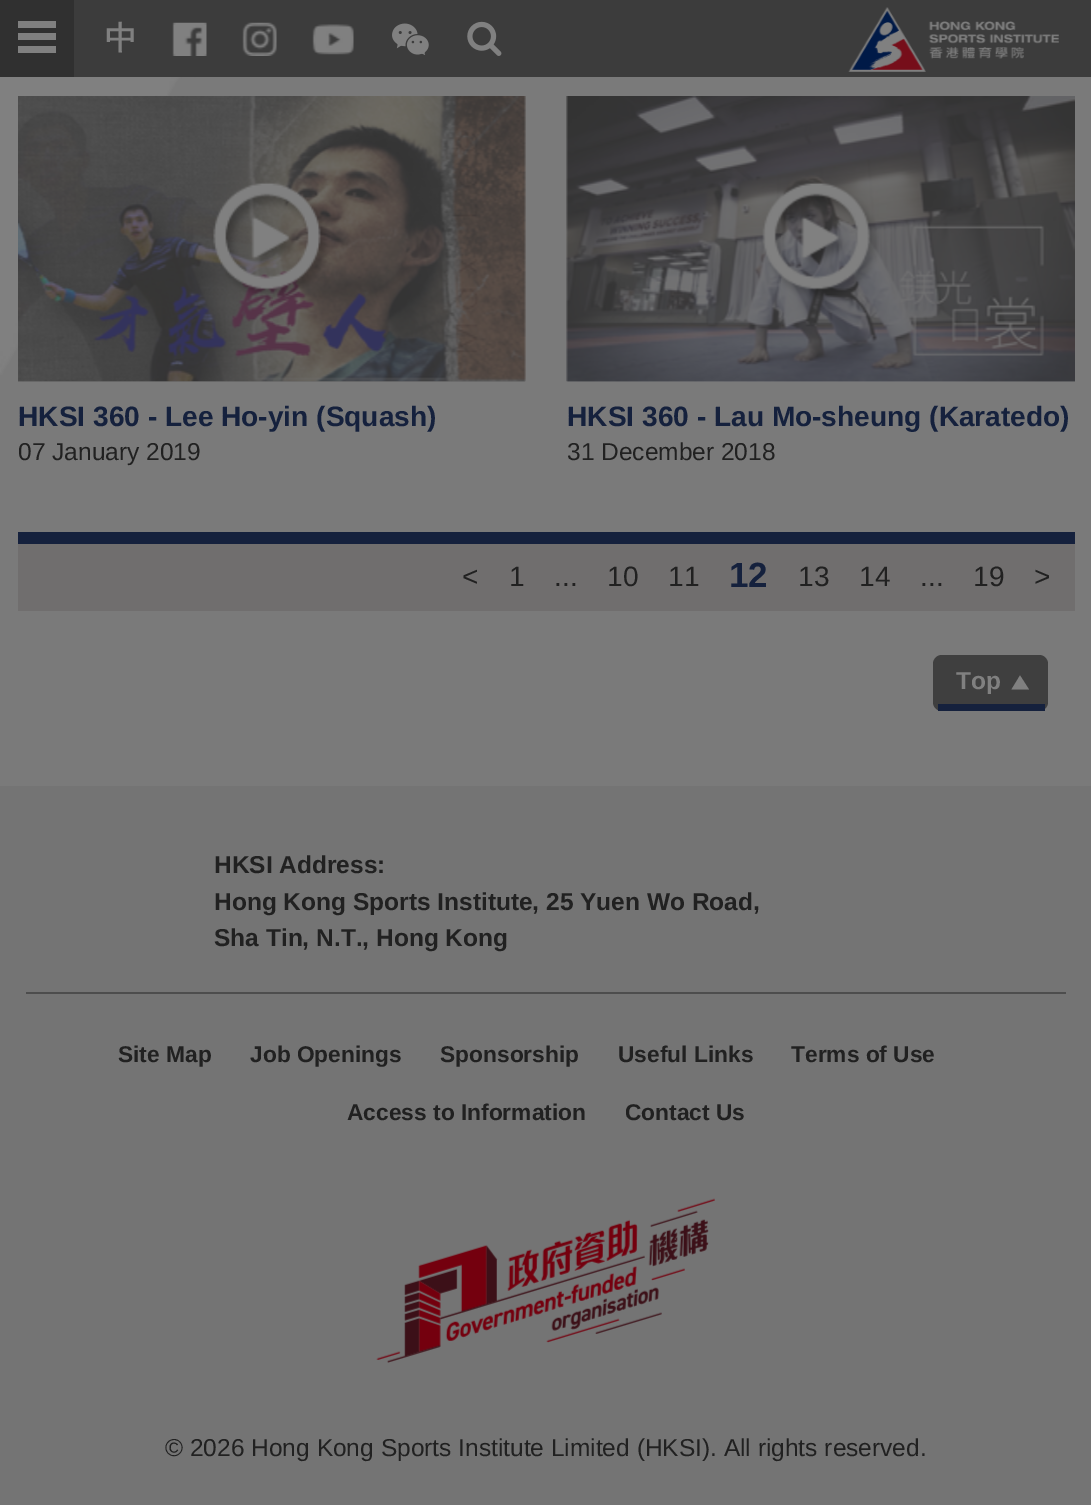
%!PS
<< /PageSize [1091 1505] /PageUsesTransparency true >> setpagedevice
/alpha { dup .setfillconstantalpha .setstrokeconstantalpha } def
/roundrect { 5 dict begin { /r /h /w /y /x } { exch def } forall
  x r add y moveto x w add y 2 copy h add r arct x w add y h add x 1 index r arct
  x y h add x y r arct x y 2 copy exch w add exch r arct closepath end } def
/picture { 5 dict begin { /h /w /y /x /name } { exch def } forall
  gsave x y translate w h scale
  w h 8 [w 0 0 h 0 0] name (r) file false 3 colorimage grestore end } def
0 .pushpdf14devicefilter
0 1505 translate 1 -1 scale
4 setmiterlimit
1 setgray
0 0 1091 1505 rectfill
(img1.rgb) 0 77 1091 709 picture
0.235 setgray
74 0 1017 77 rectfill
0.188 setgray
0 0 74 77 rectfill
0.502 setgray
18 21 38 7 rectfill
18 33 38 7 rectfill
18 46 38 7 rectfill
/WenQuanYiZenHei-Bold [32 0 0 -32 0 0] selectfont
105 49 moveto (中) show
(img2.rgb) 172 22 35 34 picture
(img3.rgb) 242 22 35 34 picture
(img4.rgb) 312 24 42 31 picture
(img5.rgb) 392 23 37 32 picture
(img6.rgb) 467 21 35 35 picture
(img7.rgb) 848 7 211 65 picture
(img8.rgb) 18 96 508 286 picture
0.5 alpha
0.4 setgray
18 96 507 286 rectfill
1 alpha
(img9.rgb) 213 182 117 119 picture
/LiberationSans-Bold [28.1 0 0 -28.1 0 0] selectfont
0.082 0.129 0.239 setrgbcolor
18 426 moveto (HKSI 360 - Lee Ho-yin \(Squash\)) show
/LiberationSans-Regular [24.5 0 0 -24.5 0 0] selectfont
0.129 setgray
18 460 moveto (07 January 2019) show
(img10.rgb) 566 96 509 286 picture
0.5 alpha
0.4 setgray
567 96 508 285 rectfill
1 alpha
(img11.rgb) 762 182 117 118 picture
/LiberationSans-Bold [28.1 0 0 -28.1 0 0] selectfont
0.082 0.129 0.239 setrgbcolor
567 426 moveto (HKSI 360 - Lau Mo-sheung \(Karatedo\)) show
/LiberationSans-Regular [24.5 0 0 -24.5 0 0] selectfont
0.129 setgray
567 460 moveto (31 December 2018) show
0.439 0.431 0.431 setrgbcolor
18 544 1057 67 rectfill
0.082 0.129 0.239 setrgbcolor
18 532 1057 12 rectfill
/LiberationSans-Regular [28.1 0 0 -28.1 0 0] selectfont
0.129 setgray
462 586 moveto (<) show
509 586 moveto (1) show
607 586 moveto (10) show
668 586 moveto (11) show
/LiberationSans-Bold [35 0 0 -35 0 0] selectfont
0.082 0.129 0.239 setrgbcolor
729 587 moveto (12) show
/LiberationSans-Regular [28.1 0 0 -28.1 0 0] selectfont
0.129 setgray
798 586 moveto (13) show
859 586 moveto (14) show
973 586 moveto (19) show
1034 586 moveto (>) show
554 586 moveto (...) show
920 586 moveto (...) show
0.247 setgray
933 655 115 56 9 roundrect fill
0.082 0.129 0.239 setrgbcolor
938 704 107 7 rectfill
/LiberationSans-Bold [24.5 0 0 -24.5 0 0] selectfont
0.502 setgray
956 689 moveto (Top) show
newpath 1029 689.5 moveto 1011.5 689.5 lineto 1020 675.5 lineto closepath fill
0.455 setgray
0 786 1091 719 rectfill
0.302 setgray
26 992 1040 2 rectfill
0.129 setgray
214 873 moveto (HKSI Address:) show
214 910 moveto (Hong Kong Sports Institute, 25 Yuen Wo Road,) show
214 946 moveto (Sha Tin, N.T., Hong Kong) show
/LiberationSans-Bold [22.75 0 0 -22.75 0 0] selectfont
118 1062 moveto (Site Map) show
250 1062 moveto (Job Openings) show
440 1062 moveto (Sponsorship) show
618 1062 moveto (Useful Links) show
791 1062 moveto (Terms of Use) show
347 1120 moveto (Access to Information) show
625 1120 moveto (Contact Us) show
(img12.rgb) 376 1198 339 165 picture
/LiberationSans-Regular [24.5 0 0 -24.5 0 0] selectfont
165 1456 moveto (© 2026 Hong Kong Sports Institute Limited \(HKSI\). All rights reserved.) show
.poppdf14devicefilter showpage
